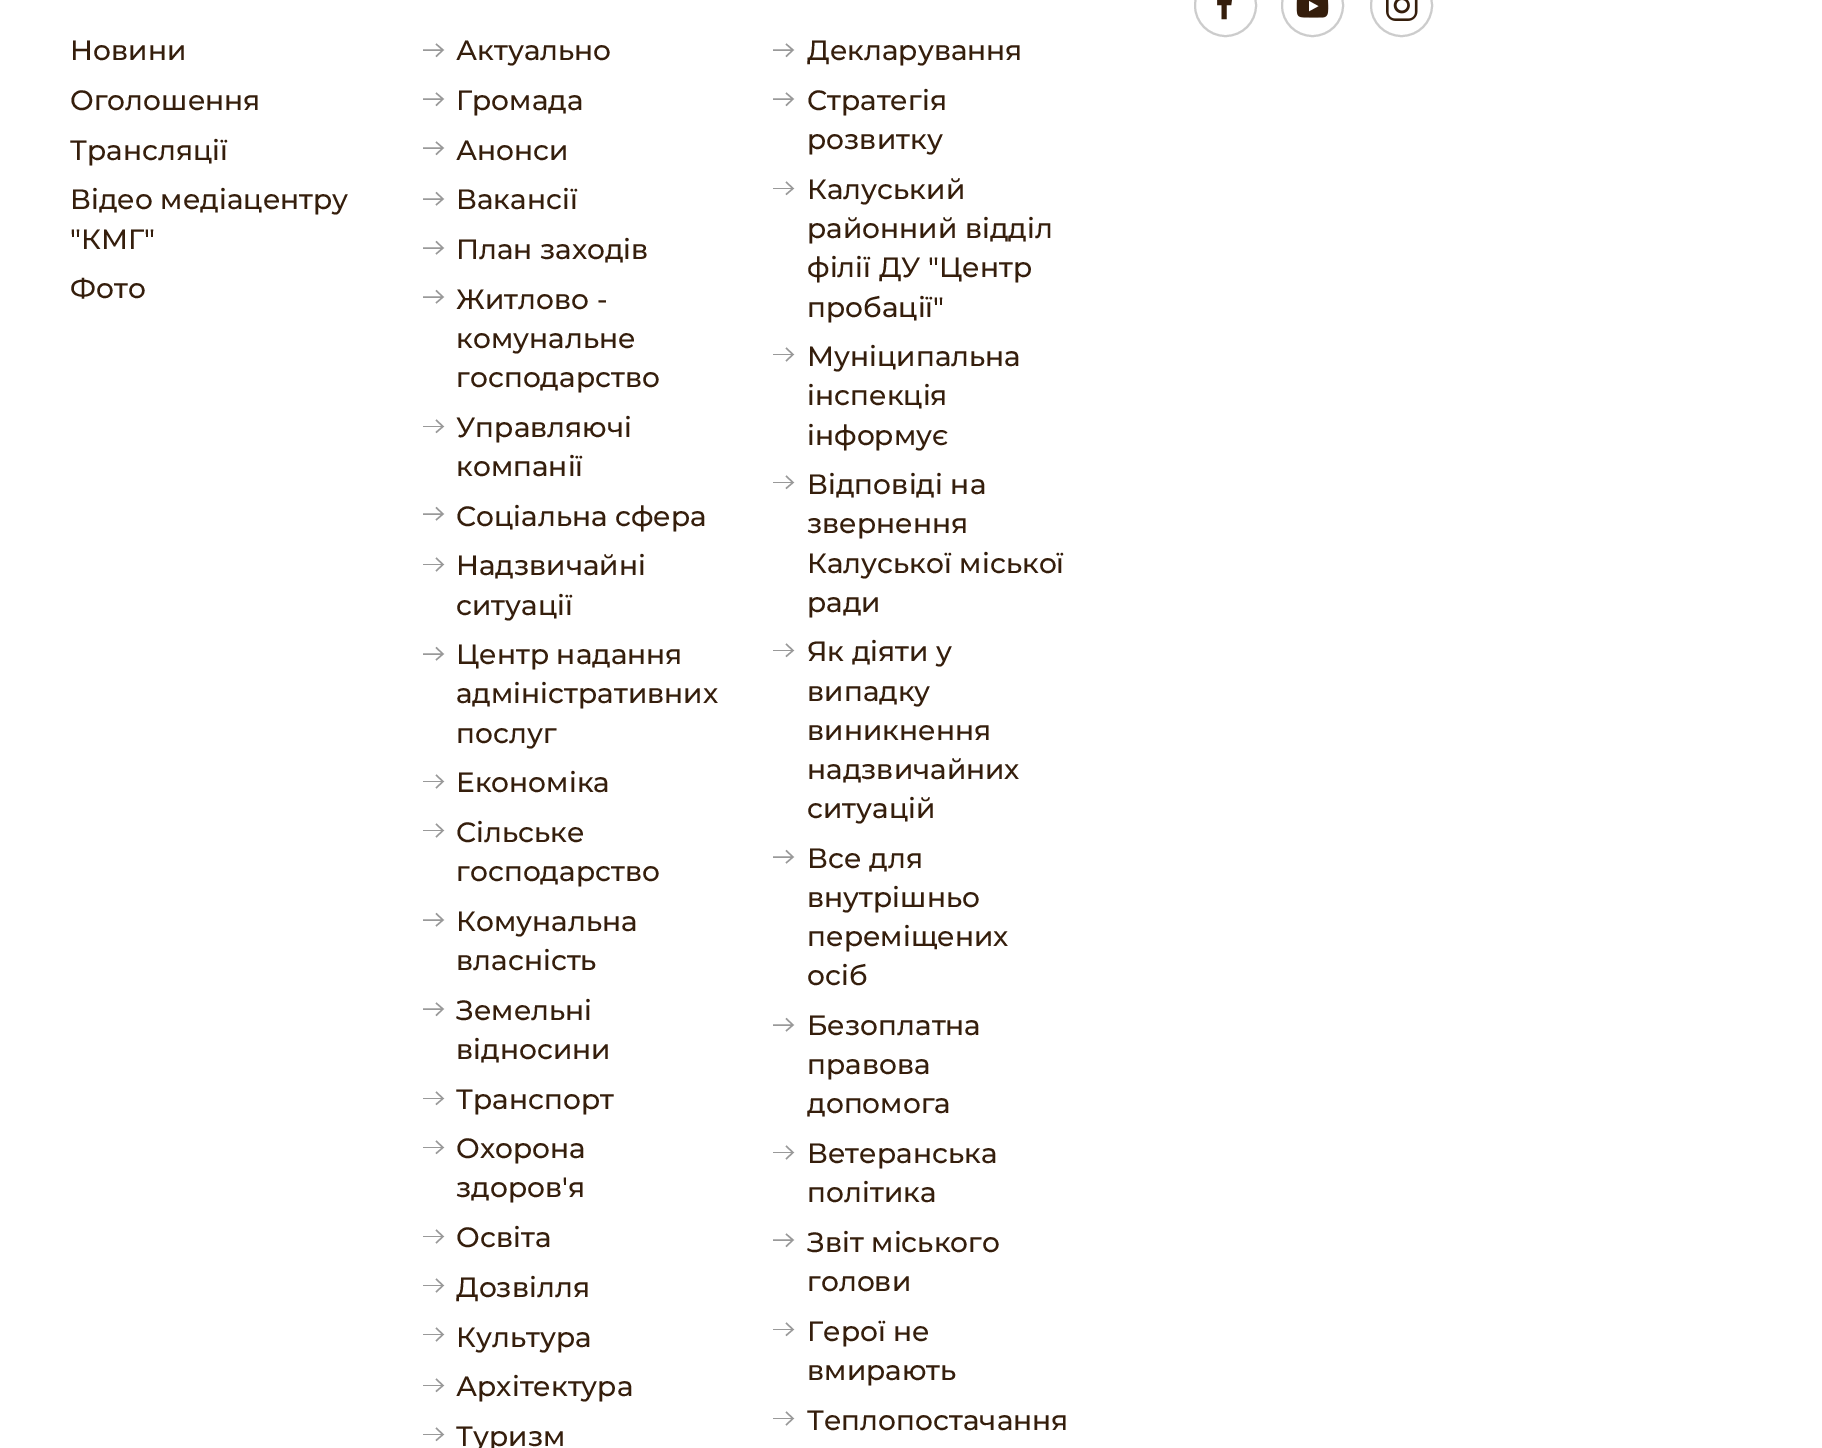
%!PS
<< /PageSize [1822 1448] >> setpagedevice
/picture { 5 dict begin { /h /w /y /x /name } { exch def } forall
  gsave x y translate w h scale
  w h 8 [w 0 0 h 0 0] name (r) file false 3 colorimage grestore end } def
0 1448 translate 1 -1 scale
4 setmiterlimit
1 setgray
0 0 1822 1448 rectfill
0.8 setgray
2 setlinewidth
newpath 1225.5 5.5 30.5 0 360 arc closepath stroke
(img1.rgb) 1217 0 15 20 picture
newpath 1312.5 5.5 30.5 0 360 arc closepath stroke
(img2.rgb) 1296 0 33 18 picture
newpath 1401.5 5.5 30.5 0 360 arc closepath stroke
(img3.rgb) 1386 0 32 21 picture
/Montserrat-Medium [28 0 0 -28 0 0] selectfont
0.208 0.118 0.047 setrgbcolor
70 60 moveto (Новини) show
70 110 moveto (Оголошення) show
70 160 moveto (Трансляції) show
70 209 moveto (Відео медіацентру) show
70 249 moveto ("КМГ") show
70 298 moveto (Фото) show
0.6 setgray
1.4 setlinewidth
newpath 436 44 moveto 443 50 lineto 436 56.5 lineto 423 50 moveto 443 50 lineto stroke
0.208 0.118 0.047 setrgbcolor
456 60 moveto (Актуально) show
0.6 setgray
newpath 786 44 moveto 793 50 lineto 786 56.5 lineto 773 50 moveto 793 50 lineto stroke
0.208 0.118 0.047 setrgbcolor
807 60 moveto (Декларування) show
0.6 setgray
newpath 436 93 moveto 443 99 lineto 436 105.5 lineto 423 99 moveto 443 99 lineto stroke
0.208 0.118 0.047 setrgbcolor
456 110 moveto (Громада) show
0.6 setgray
newpath 786 93 moveto 793 99 lineto 786 105.5 lineto 773 99 moveto 793 99 lineto stroke
0.208 0.118 0.047 setrgbcolor
807 110 moveto (Стратегія) show
807 149 moveto (розвитку) show
0.6 setgray
newpath 436 142 moveto 443 148 lineto 436 154.5 lineto 423 148 moveto 443 148 lineto stroke
0.208 0.118 0.047 setrgbcolor
456 160 moveto (Анонси) show
0.6 setgray
newpath 436 192.5 moveto 443 199 lineto 436 205 lineto 423 199 moveto 443 199 lineto stroke
0.208 0.118 0.047 setrgbcolor
456 209 moveto (Ваканcії) show
0.6 setgray
newpath 786 182 moveto 793 188.5 lineto 786 194.5 lineto stroke
773 188 20 1 rectfill
0.208 0.118 0.047 setrgbcolor
807 199 moveto (Калуський) show
807 238 moveto (районний відділ) show
807 277 moveto (філії ДУ "Центр) show
807 317 moveto (пробації") show
0.6 setgray
newpath 436 241.5 moveto 443 248 lineto 436 254 lineto 423 248 moveto 443 248 lineto stroke
0.208 0.118 0.047 setrgbcolor
456 259 moveto (План заходів) show
0.6 setgray
newpath 436 290.5 moveto 443 297 lineto 436 303 lineto 423 297 moveto 443 297 lineto stroke
0.208 0.118 0.047 setrgbcolor
456 309 moveto (Житлово -) show
456 348 moveto (комунальне) show
456 387 moveto (господарство) show
0.6 setgray
newpath 786 348 moveto 793 354.5 lineto 786 361 lineto stroke
773 354 20 1 rectfill
0.208 0.118 0.047 setrgbcolor
807 366 moveto (Муніципальна) show
807 405 moveto (інспекція) show
807 445 moveto (інформує) show
0.6 setgray
newpath 436 420 moveto 443 426.5 lineto 436 432.5 lineto stroke
423 426 20 1 rectfill
0.208 0.118 0.047 setrgbcolor
456 437 moveto (Управляючі) show
456 476 moveto (компанії) show
0.6 setgray
newpath 436 507.5 moveto 443 514 lineto 436 520 lineto 423 514 moveto 443 514 lineto stroke
0.208 0.118 0.047 setrgbcolor
456 526 moveto (Соціальна сфера) show
0.6 setgray
newpath 786 476 moveto 793 482.5 lineto 786 488.5 lineto stroke
773 482 20 1 rectfill
0.208 0.118 0.047 setrgbcolor
807 494 moveto (Відповіді на) show
807 533 moveto (звернення) show
807 573 moveto (Калуської міської) show
807 612 moveto (ради) show
0.6 setgray
newpath 436 558 moveto 443 564.5 lineto 436 571 lineto stroke
423 564 20 1 rectfill
0.208 0.118 0.047 setrgbcolor
456 575 moveto (Надзвичайні) show
456 615 moveto (ситуації) show
0.6 setgray
newpath 436 647.5 moveto 443 654 lineto 436 660 lineto 423 654 moveto 443 654 lineto stroke
0.208 0.118 0.047 setrgbcolor
456 664 moveto (Центр надання) show
456 703 moveto (адміністративних) show
456 743 moveto (послуг) show
0.6 setgray
newpath 786 644 moveto 793 650.5 lineto 786 656.5 lineto stroke
773 650 20 1 rectfill
0.208 0.118 0.047 setrgbcolor
807 661 moveto (Як діяти у) show
807 701 moveto (випадку) show
807 740 moveto (виникнення) show
807 779 moveto (надзвичайних) show
807 818 moveto (ситуацій) show
0.6 setgray
newpath 436 775 moveto 443 781.5 lineto 436 788 lineto stroke
423 781 20 1 rectfill
0.208 0.118 0.047 setrgbcolor
456 792 moveto (Економіка) show
0.6 setgray
newpath 436 824 moveto 443 830.5 lineto 436 837 lineto stroke
423 830 20 1 rectfill
0.208 0.118 0.047 setrgbcolor
456 842 moveto (Сільське) show
456 881 moveto (господарство) show
0.6 setgray
newpath 786 850.5 moveto 793 857 lineto 786 863 lineto 773 857 moveto 793 857 lineto stroke
0.208 0.118 0.047 setrgbcolor
807 868 moveto (Все для) show
807 907 moveto (внутрішньо) show
807 946 moveto (переміщених) show
807 985 moveto (осіб) show
0.6 setgray
newpath 436 913.5 moveto 443 920 lineto 436 926 lineto 423 920 moveto 443 920 lineto stroke
0.208 0.118 0.047 setrgbcolor
456 931 moveto (Комунальна) show
456 970 moveto (власність) show
0.6 setgray
newpath 436 1003 moveto 443 1009 lineto 436 1015.5 lineto 423 1009 moveto 443 1009 lineto stroke
0.208 0.118 0.047 setrgbcolor
456 1020 moveto (Земельні) show
456 1059 moveto (відносини) show
0.6 setgray
newpath 786 1018.5 moveto 793 1025 lineto 786 1031 lineto 773 1025 moveto 793 1025 lineto stroke
0.208 0.118 0.047 setrgbcolor
807 1035 moveto (Безоплатна) show
807 1074 moveto (правова) show
807 1113 moveto (допомога) show
0.6 setgray
newpath 436 1092 moveto 443 1098.5 lineto 436 1104.5 lineto stroke
423 1098 20 1 rectfill
0.208 0.118 0.047 setrgbcolor
456 1109 moveto (Транспорт) show
0.6 setgray
newpath 436 1141 moveto 443 1147.5 lineto 436 1153.5 lineto stroke
423 1147 20 1 rectfill
0.208 0.118 0.047 setrgbcolor
456 1158 moveto (Охорона) show
456 1197 moveto (здоров'я) show
0.6 setgray
newpath 786 1146 moveto 793 1152.5 lineto 786 1159 lineto stroke
773 1152 20 1 rectfill
0.208 0.118 0.047 setrgbcolor
807 1163 moveto (Ветеранська) show
807 1202 moveto (політика) show
0.6 setgray
newpath 436 1230 moveto 443 1236.5 lineto 436 1243 lineto stroke
423 1236 20 1 rectfill
0.208 0.118 0.047 setrgbcolor
456 1247 moveto (Освіта) show
0.6 setgray
newpath 786 1234 moveto 793 1240 lineto 786 1246.5 lineto 773 1240 moveto 793 1240 lineto stroke
0.208 0.118 0.047 setrgbcolor
807 1252 moveto (Звіт міського) show
807 1291 moveto (голови) show
0.6 setgray
newpath 436 1279 moveto 443 1285.5 lineto 436 1292 lineto stroke
423 1285 20 1 rectfill
0.208 0.118 0.047 setrgbcolor
456 1297 moveto (Дозвілля) show
0.6 setgray
newpath 436 1328 moveto 443 1334.5 lineto 436 1341 lineto stroke
423 1334 20 1 rectfill
0.208 0.118 0.047 setrgbcolor
456 1347 moveto (Культура) show
0.6 setgray
newpath 786 1323 moveto 793 1329.5 lineto 786 1335.5 lineto stroke
773 1329 20 1 rectfill
0.208 0.118 0.047 setrgbcolor
807 1341 moveto (Герої не) show
807 1380 moveto (вмирають) show
0.6 setgray
newpath 436 1379 moveto 443 1385.5 lineto 436 1391.5 lineto stroke
423 1385 20 1 rectfill
0.208 0.118 0.047 setrgbcolor
456 1396 moveto (Архітектура) show
0.6 setgray
newpath 786 1412 moveto 793 1418.5 lineto 786 1425 lineto stroke
773 1418 20 1 rectfill
0.208 0.118 0.047 setrgbcolor
807 1430 moveto (Теплопостачання) show
0.6 setgray
newpath 436 1428 moveto 443 1434.5 lineto 436 1440.5 lineto stroke
423 1434 20 1 rectfill
0.208 0.118 0.047 setrgbcolor
456 1446 moveto (Туризм) show
showpage
